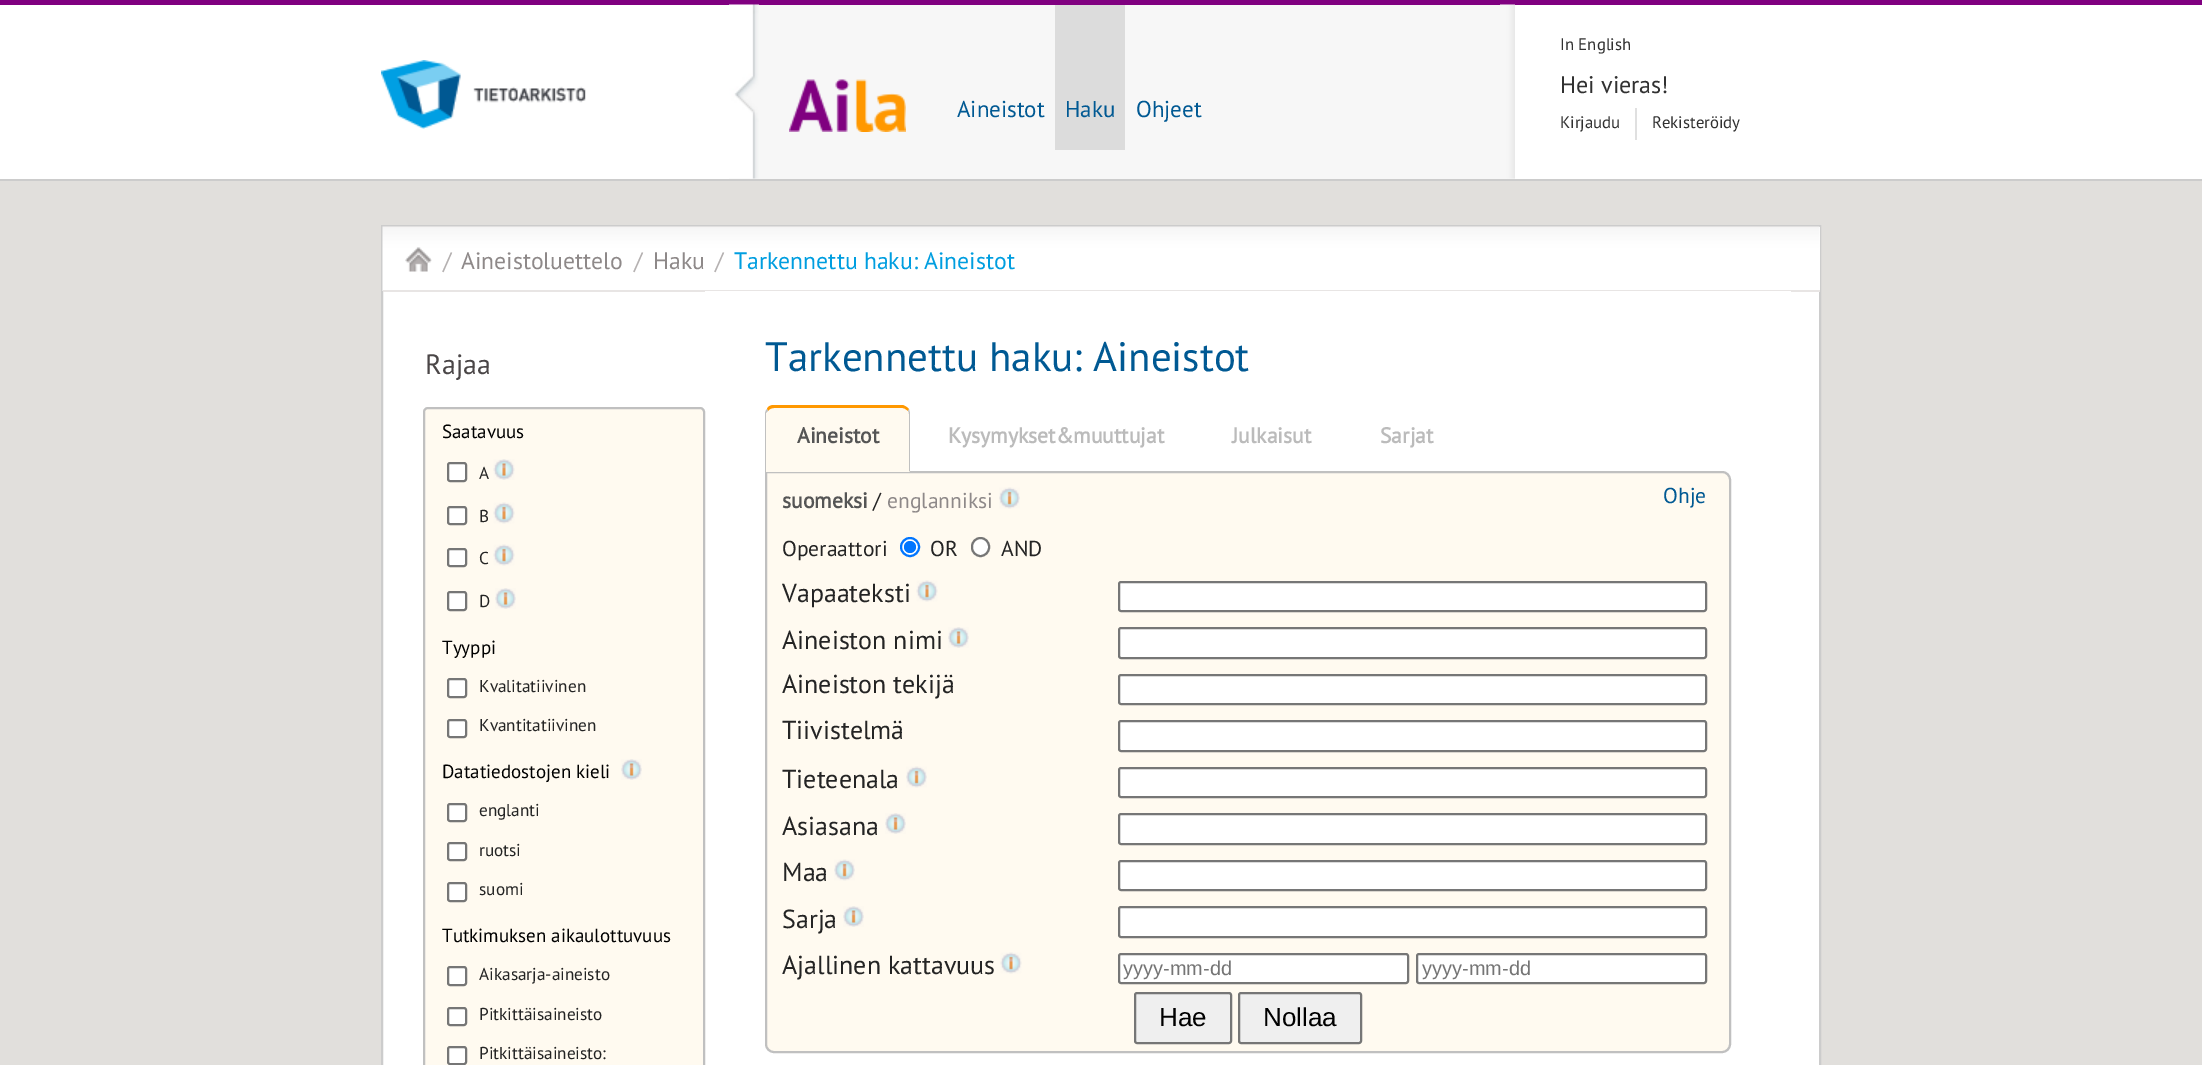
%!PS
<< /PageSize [2202 1065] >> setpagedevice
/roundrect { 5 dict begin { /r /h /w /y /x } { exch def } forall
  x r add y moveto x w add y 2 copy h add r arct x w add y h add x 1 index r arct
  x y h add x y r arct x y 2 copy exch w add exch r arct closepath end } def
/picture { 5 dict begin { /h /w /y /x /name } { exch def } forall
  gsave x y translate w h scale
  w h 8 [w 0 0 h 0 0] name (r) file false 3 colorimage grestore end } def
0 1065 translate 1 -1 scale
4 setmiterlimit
0.882 0.875 0.863 setrgbcolor
0 0 2202 1065 rectfill
1 setgray
0 5 2202 174 rectfill
0.502 0 0.502 setrgbcolor
0 0 2202 5 rectfill
0.8 setgray
0 179 2202 2 rectfill
(img1.rgb) 381 60 205 69 picture
0.969 setgray
729 5 786 174 rectfill
(img2.rgb) 729 4 30 175 picture
(img3.rgb) 789 79 117 53 picture
(img4.rgb) 1500 4 15 175 picture
/PTSans-Regular [23 0 0 -23 0 0] selectfont
0 0.349 0.576 setrgbcolor
957 117 moveto (Aineistot) show
0.863 setgray
1055 5 70 145 rectfill
0 0.349 0.576 setrgbcolor
1065 117 moveto (Haku) show
1136 117 moveto (Ohjeet) show
/PTSans-Regular [16.75 0 0 -16.75 0 0] selectfont
0.192 setgray
1560 50 moveto (In English) show
/PTSans-Regular [24 0 0 -24 0 0] selectfont
1560 93 moveto (Hei vieras!) show
/PTSans-Regular [16.75 0 0 -16.75 0 0] selectfont
1560 128 moveto (Kirjaudu) show
0.878 setgray
1635 108 2 32 rectfill
0.192 setgray
1652 128 moveto (Rekisteröidy) show
1 setgray
383 292 1436 773 rectfill
0.8 setgray
2 setlinewidth
382 226 1438 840 rectstroke
1 setgray
1819 227 1 63 rectfill
(img5.rgb) 382 226 1438 65 picture
0.91 0.898 0.894 setrgbcolor
383 290 1437 2 rectfill
(img6.rgb) 405 247 27 25 picture
/PTSans-Regular [23.75 0 0 -23.75 0 0] selectfont
0.71 0.694 0.694 setrgbcolor
443 269 moveto (/) show
0.557 0.537 0.537 setrgbcolor
461 269 moveto (Aineistoluettelo) show
0.71 0.694 0.694 setrgbcolor
634 269 moveto (/) show
0.557 0.537 0.537 setrgbcolor
653 269 moveto (Haku) show
0.71 0.694 0.694 setrgbcolor
715 269 moveto (/) show
0 0.62 0.878 setrgbcolor
734 269 moveto (Tarkennettu haku: Aineistot) show
/PTSans-Regular [28 0 0 -28 0 0] selectfont
0.29 0.275 0.278 setrgbcolor
425 374 moveto (Rajaa) show
1 0.98 0.941 setrgbcolor
424 408 280 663 4 roundrect gsave fill grestore
0.753 setgray
stroke
/PTSans-Regular [19 0 0 -19 0 0] selectfont
0 setgray
442 438 moveto (Saatavuus) show
1 setgray
448 463 18 18 2 roundrect gsave fill grestore
0.463 setgray
stroke
/PTSans-Regular [17.25 0 0 -17.25 0 0] selectfont
0.141 setgray
479 479 moveto (A) show
(img7.rgb) 493 459 22 21 picture
1 setgray
448 507 18 17 2 roundrect gsave fill grestore
0.463 setgray
stroke
0.141 setgray
479 522 moveto (B) show
(img8.rgb) 493 502 22 22 picture
1 setgray
448 549 18 17 2 roundrect gsave fill grestore
0.463 setgray
stroke
0.141 setgray
479 564 moveto (C) show
(img8.rgb) 493 544 22 22 picture
1 setgray
448 592 18 18 2 roundrect gsave fill grestore
0.463 setgray
stroke
0.141 setgray
479 607 moveto (D) show
(img9.rgb) 495 588 21 21 picture
/PTSans-Regular [19 0 0 -19 0 0] selectfont
0 setgray
442 654 moveto (Tyyppi) show
1 setgray
448 679 18 18 2 roundrect gsave fill grestore
0.463 setgray
stroke
/PTSans-Regular [17.25 0 0 -17.25 0 0] selectfont
0.141 setgray
479 692 moveto (Kvalitatiivinen) show
1 setgray
448 720 18 17 2 roundrect gsave fill grestore
0.463 setgray
stroke
0.141 setgray
479 731 moveto (Kvantitatiivinen) show
/PTSans-Regular [19 0 0 -19 0 0] selectfont
0 setgray
442 778 moveto (Datatiedostojen kieli) show
(img10.rgb) 621 759 21 21 picture
1 setgray
448 804 18 17 2 roundrect gsave fill grestore
0.463 setgray
stroke
/PTSans-Regular [17.25 0 0 -17.25 0 0] selectfont
0.141 setgray
479 816 moveto (englanti) show
1 setgray
448 843 18 17 2 roundrect gsave fill grestore
0.463 setgray
stroke
0.141 setgray
479 856 moveto (ruotsi) show
1 setgray
448 883 18 18 2 roundrect gsave fill grestore
0.463 setgray
stroke
0.141 setgray
479 895 moveto (suomi) show
/PTSans-Regular [19 0 0 -19 0 0] selectfont
0 setgray
442 942 moveto (Tutkimuksen aikaulottuvuus) show
1 setgray
448 967 18 18 2 roundrect gsave fill grestore
0.463 setgray
stroke
/PTSans-Regular [17.25 0 0 -17.25 0 0] selectfont
0.141 setgray
479 980 moveto (Aikasarja-aineisto) show
1 setgray
448 1008 18 17 2 roundrect gsave fill grestore
0.463 setgray
stroke
0.141 setgray
479 1020 moveto (Pitkittäisaineisto) show
1 setgray
448 1047 18 17 2 roundrect gsave fill grestore
0.463 setgray
stroke
0.141 setgray
479 1059 moveto (Pitkittäisaineisto:) show
1 setgray
705 291 1086 1 rectfill
/PTSans-Regular [41 0 0 -41 0 0] selectfont
0 0.349 0.576 setrgbcolor
765 371 moveto (Tarkennettu haku: Aineistot) show
1 0.98 0.941 setrgbcolor
newpath 774 408 moveto 902 408 lineto 906 408 909 411 909 414 curveto 909 471 lineto 766 471 lineto 766 414 lineto 766 411 770 408 774 408 curveto closepath fill
1 0.596 0 setrgbcolor
newpath 774 405 moveto 771 405 768 406 767 409 curveto 768 411 lineto 769 409 772 408 774 408 curveto 902 408 lineto 904 408 906 409 908 411 curveto 909 409 lineto 907 407 904 405 902 405 curveto closepath fill
1 0.98 0.941 setrgbcolor
newpath 766 472 moveto 1722 472 lineto 1726.5 472 1730 475.5 1730 480 curveto 1730 1044 lineto 1730 1048.5 1726.5 1052 1722 1052 curveto 774 1052 lineto 769.5 1052 766 1048.5 766 1044 curveto closepath gsave fill grestore
0.753 setgray
stroke
newpath 909 409 moveto 909 410 910 412 910 414 curveto 910 472 lineto 909 471 lineto 909 414 lineto 909 413 909 412 908 411 curveto closepath fill
1 0.98 0.941 setrgbcolor
newpath 910 472 moveto 909 471 lineto 766 471 lineto 766 472 lineto closepath fill
0.753 setgray
newpath 765 414 moveto 765 472 lineto 766 472 lineto 766 471 lineto 766 413 lineto 768 411 lineto 767 409 lineto 766 410 765 412 765 414 curveto closepath fill
/PTSans-Bold [21.6 0 0 -21.6 0 0] selectfont
0.333 setgray
797 443 moveto (Aineistot) show
0.733 setgray
948 443 moveto (Kysymykset&muuttujat) show
1232 443 moveto (Julkaisut) show
1380 443 moveto (Sarjat) show
0.333 setgray
782 508 moveto (suomeksi) show
/PTSans-Regular [21.6 0 0 -21.6 0 0] selectfont
0.141 setgray
873 508 moveto (/) show
0.557 0.537 0.537 setrgbcolor
887 508 moveto (englanniksi) show
(img11.rgb) 999 487 21 22 picture
0 0.349 0.576 setrgbcolor
1663 503 moveto (Ohje) show
0.141 setgray
782 556 moveto (Operaattori) show
1 setgray
newpath 910 547 9 0 360 arc closepath gsave fill grestore
0 0.459 1 setrgbcolor
stroke
newpath 910 547 6 0 360 arc closepath fill
0.141 setgray
930 556 moveto (OR) show
1 setgray
972 538 17 18 8.5 roundrect gsave fill grestore
0.463 setgray
stroke
0.141 setgray
1001 556 moveto (AND) show
/PTSans-Regular [26 0 0 -26 0 0] selectfont
782 602 moveto (Vapaateksti) show
(img8.rgb) 916 580 22 22 picture
1 setgray
1119 582 587 29 2 roundrect gsave fill grestore
0.463 setgray
stroke
0.141 setgray
782 649 moveto (Aineiston nimi) show
(img10.rgb) 948 627 21 21 picture
1 setgray
1119 628 587 30 2 roundrect gsave fill grestore
0.463 setgray
stroke
0.141 setgray
782 693 moveto (Aineiston tekijä) show
1 setgray
1119 675 587 29 2 roundrect gsave fill grestore
0.463 setgray
stroke
0.141 setgray
782 739 moveto (Tiivistelmä) show
1 setgray
1119 721 587 30 2 roundrect gsave fill grestore
0.463 setgray
stroke
0.141 setgray
782 788 moveto (Tieteenala) show
(img11.rgb) 906 766 21 22 picture
1 setgray
1119 768 587 29 2 roundrect gsave fill grestore
0.463 setgray
stroke
0.141 setgray
782 835 moveto (Asiasana) show
(img10.rgb) 885 813 21 21 picture
1 setgray
1119 814 587 30 2 roundrect gsave fill grestore
0.463 setgray
stroke
0.141 setgray
782 881 moveto (Maa) show
(img11.rgb) 834 859 21 22 picture
1 setgray
1119 861 587 29 2 roundrect gsave fill grestore
0.463 setgray
stroke
0.141 setgray
782 928 moveto (Sarja) show
(img10.rgb) 843 906 21 21 picture
1 setgray
1119 907 587 30 2 roundrect gsave fill grestore
0.463 setgray
stroke
0.141 setgray
782 974 moveto (Ajallinen kattavuus) show
(img8.rgb) 1000 952 22 22 picture
1 setgray
1119 954 289 29 2 roundrect gsave fill grestore
0.463 setgray
stroke
/LiberationSans-Regular [20 0 0 -20 0 0] selectfont
0.459 setgray
1123 975 moveto (yyyy-mm-dd) show
1 setgray
1417 954 289 29 2 roundrect gsave fill grestore
0.463 setgray
stroke
0.459 setgray
1422 975 moveto (yyyy-mm-dd) show
0.937 setgray
1135 993 96 50 2 roundrect gsave fill grestore
0.463 setgray
stroke
/LiberationSans-Regular [26 0 0 -26 0 0] selectfont
0 setgray
1159 1026 moveto (Hae) show
0.937 setgray
1239 993 122 50 2 roundrect gsave fill grestore
0.463 setgray
stroke
0 setgray
1263 1026 moveto (Nollaa) show
showpage
